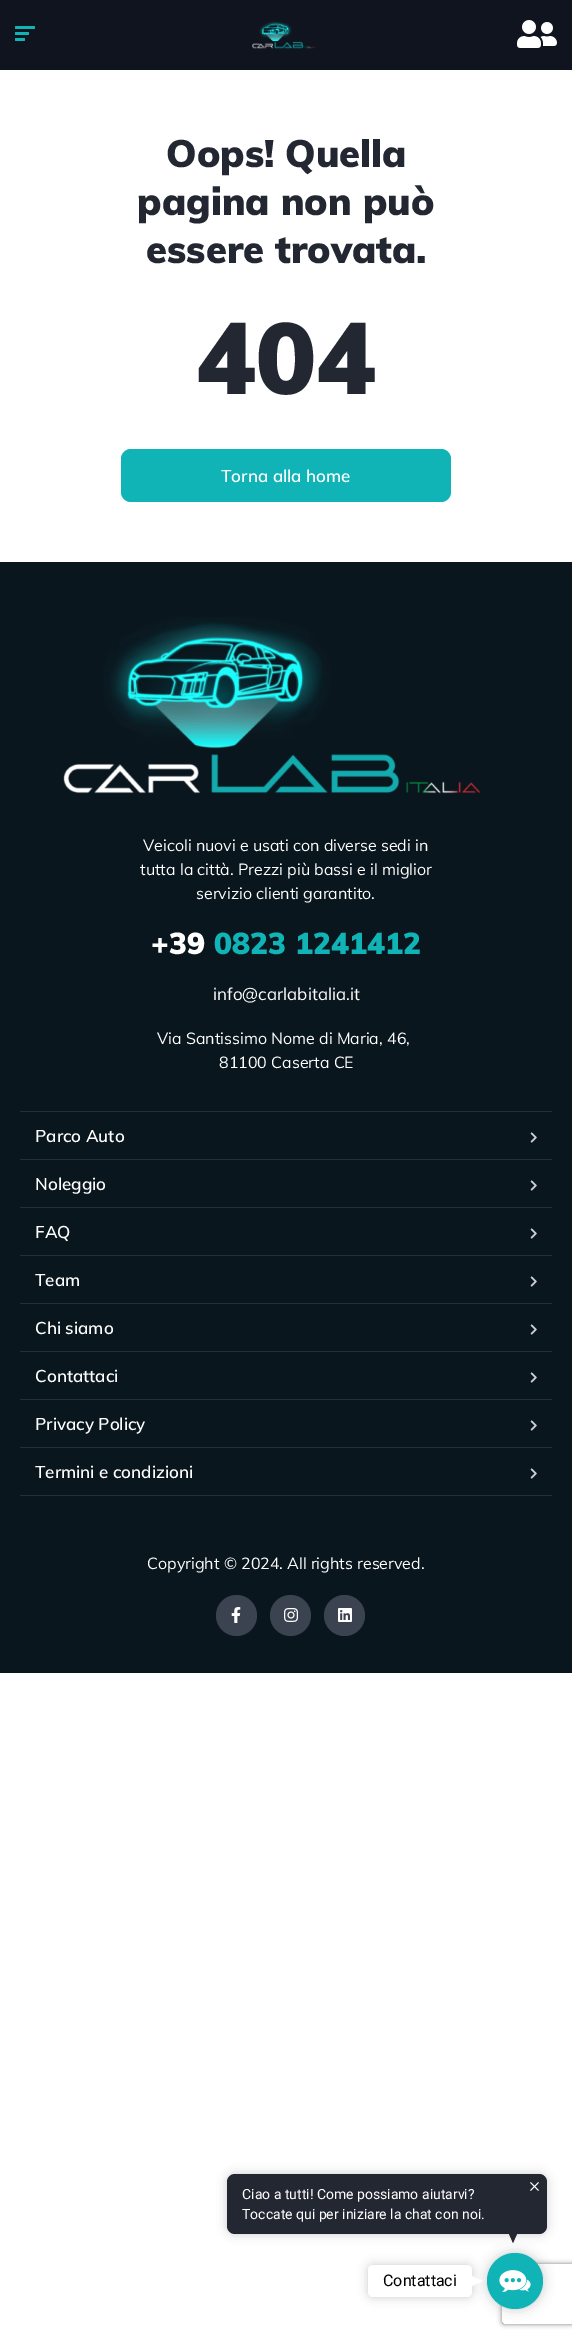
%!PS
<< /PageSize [572 2338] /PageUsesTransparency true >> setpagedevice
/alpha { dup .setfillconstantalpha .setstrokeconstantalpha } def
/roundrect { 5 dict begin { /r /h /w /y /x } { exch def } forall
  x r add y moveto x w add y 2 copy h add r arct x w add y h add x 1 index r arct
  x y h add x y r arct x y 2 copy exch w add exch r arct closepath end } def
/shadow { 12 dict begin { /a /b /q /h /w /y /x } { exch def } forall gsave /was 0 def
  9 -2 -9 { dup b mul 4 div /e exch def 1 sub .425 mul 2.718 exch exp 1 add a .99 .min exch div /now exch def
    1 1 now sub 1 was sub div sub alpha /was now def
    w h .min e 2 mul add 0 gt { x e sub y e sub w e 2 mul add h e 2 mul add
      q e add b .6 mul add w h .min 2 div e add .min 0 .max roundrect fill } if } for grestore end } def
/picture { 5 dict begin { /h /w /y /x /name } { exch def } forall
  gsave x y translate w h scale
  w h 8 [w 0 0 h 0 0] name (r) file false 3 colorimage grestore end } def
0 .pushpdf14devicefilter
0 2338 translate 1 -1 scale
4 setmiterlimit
1 setgray
0 0 572 2338 rectfill
0.059 0.078 0.118 setrgbcolor
0 0 572 70 rectfill
0.063 0.702 0.714 setrgbcolor
15 26 20 3 1 roundrect fill
15 32 14 3 1 roundrect fill
15 38 10 3 1 roundrect fill
(img1.rgb) 252 21 64 28 picture
(img2.rgb) 517 20 40 28 picture
/Muli-Black [38 0 0 -38 0 0] selectfont
0.133 0.153 0.196 setrgbcolor
166 167 moveto (Oops! Quella) show
137 215 moveto (pagina non può) show
146 263 moveto (essere trovata.) show
/Muli-Black [100 0 0 -100 0 0] selectfont
196 394 moveto (404) show
0.063 0.702 0.714 setrgbcolor
121 449 330 53 10 roundrect fill
/Muli-SemiBold [17 0 0 -17 0 0] selectfont
1 setgray
221 482 moveto (Torna alla home) show
0.039 0.086 0.118 setrgbcolor
0 562 572 1111 rectfill
(img3.rgb) 63 617 418 177 picture
/Muli-Regular [16 0 0 -16 0 0] selectfont
1 setgray
143 851 moveto (Veicoli nuovi e usati con diverse sedi in) show
140 875 moveto (tutta la città. Prezzi più bassi e il miglior) show
196 899 moveto (servizio clienti garantito.) show
/Muli-Black [30 0 0 -30 0 0] selectfont
151 954 moveto (+39) show
0.063 0.702 0.714 setrgbcolor
214 954 moveto (0823 1241412) show
/Muli-Regular [17 0 0 -17 0 0] selectfont
1 setgray
213 1000 moveto (info@carlabitalia.it) show
/Muli-Regular [16 0 0 -16 0 0] selectfont
157 1044 moveto (Via Santissimo Nome di Maria, 46,) show
219 1068 moveto (81100 Caserta CE) show
0.157 0.176 0.227 setrgbcolor
20 1111 532 1 rectfill
/Muli-SemiBold [17 0 0 -17 0 0] selectfont
1 setgray
35 1142 moveto (Parco Auto) show
(img4.rgb) 530 1132 7 11 picture
0.157 0.176 0.227 setrgbcolor
20 1159 532 1 rectfill
1 setgray
35 1190 moveto (Noleggio) show
(img4.rgb) 530 1180 7 11 picture
0.157 0.176 0.227 setrgbcolor
20 1207 532 1 rectfill
1 setgray
35 1238 moveto (FAQ) show
(img4.rgb) 530 1228 7 11 picture
0.157 0.176 0.227 setrgbcolor
20 1255 532 1 rectfill
1 setgray
35 1286 moveto (Team) show
(img4.rgb) 530 1276 7 11 picture
0.157 0.176 0.227 setrgbcolor
20 1303 532 1 rectfill
1 setgray
35 1334 moveto (Chi siamo) show
(img4.rgb) 530 1324 7 11 picture
0.157 0.176 0.227 setrgbcolor
20 1351 532 1 rectfill
1 setgray
35 1382 moveto (Contattaci) show
(img4.rgb) 530 1372 7 11 picture
0.157 0.176 0.227 setrgbcolor
20 1399 532 1 rectfill
1 setgray
35 1430 moveto (Privacy Policy) show
(img4.rgb) 530 1420 7 11 picture
0.157 0.176 0.227 setrgbcolor
20 1447 532 1 rectfill
20 1495 532 1 rectfill
1 setgray
35 1478 moveto (Termini e condizioni) show
(img4.rgb) 530 1468 7 11 picture
/Muli-Regular [16 0 0 -16 0 0] selectfont
147 1569 moveto (Copyright © 2024. All rights reserved.) show
0.231 0.259 0.314 setrgbcolor
newpath 236.5 1615.5 20.5 0 360 arc closepath fill
(img5.rgb) 231 1607 10 16 picture
newpath 290.5 1615.5 20.5 0 360 arc closepath fill
(img6.rgb) 284 1608 14 14 picture
newpath 344.5 1615.5 20.5 0 360 arc closepath fill
(img7.rgb) 338 1608 14 14 picture
0 setgray
227 2174 320 60 8 5 0.2 shadow
0.133 0.153 0.196 setrgbcolor
227 2174 320 60 8 roundrect fill
(img8.rgb) 530 2182 9 9 picture
/Roboto-Regular [14 0 0 -14 0 0] selectfont
1 setgray
242 2199 moveto (Ciao a tutti! Come possiamo aiutarvi?) show
242 2219 moveto (Toccate qui per iniziare la chat con noi.) show
0.133 0.153 0.196 setrgbcolor
newpath 509 2234 moveto 517 2234 lineto 513 2243 lineto closepath fill
0 setgray
487 2253 56 56 28 6 0.2 shadow
gsave
newpath 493 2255 moveto 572 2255 lineto 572 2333 lineto 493 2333 lineto closepath 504 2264 moveto 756 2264 lineto 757 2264 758 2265 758 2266 curveto 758 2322 lineto 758 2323 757 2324 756 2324 curveto 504 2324 lineto 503 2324 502 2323 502 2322 curveto 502 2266 lineto 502 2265 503 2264 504 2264 curveto closepath eoclip newpath
0.502 setgray
502 2264 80 60 2 2.5 1 shadow
grestore
0.063 0.702 0.714 setrgbcolor
newpath 515 2281 28 0 360 arc closepath fill
0 setgray
368 2265 104 32 5 5 0.2 shadow
1 setgray
368 2265 104 32 5 roundrect fill
/Roboto-Regular [16 0 0 -16 0 0] selectfont
0 setgray
383 2286 moveto (Contattaci) show
1 setgray
newpath 472 2286 moveto 472 2276 lineto 483 2281 lineto closepath fill
(img9.rgb) 499 2270 32 22 picture
.poppdf14devicefilter showpage
